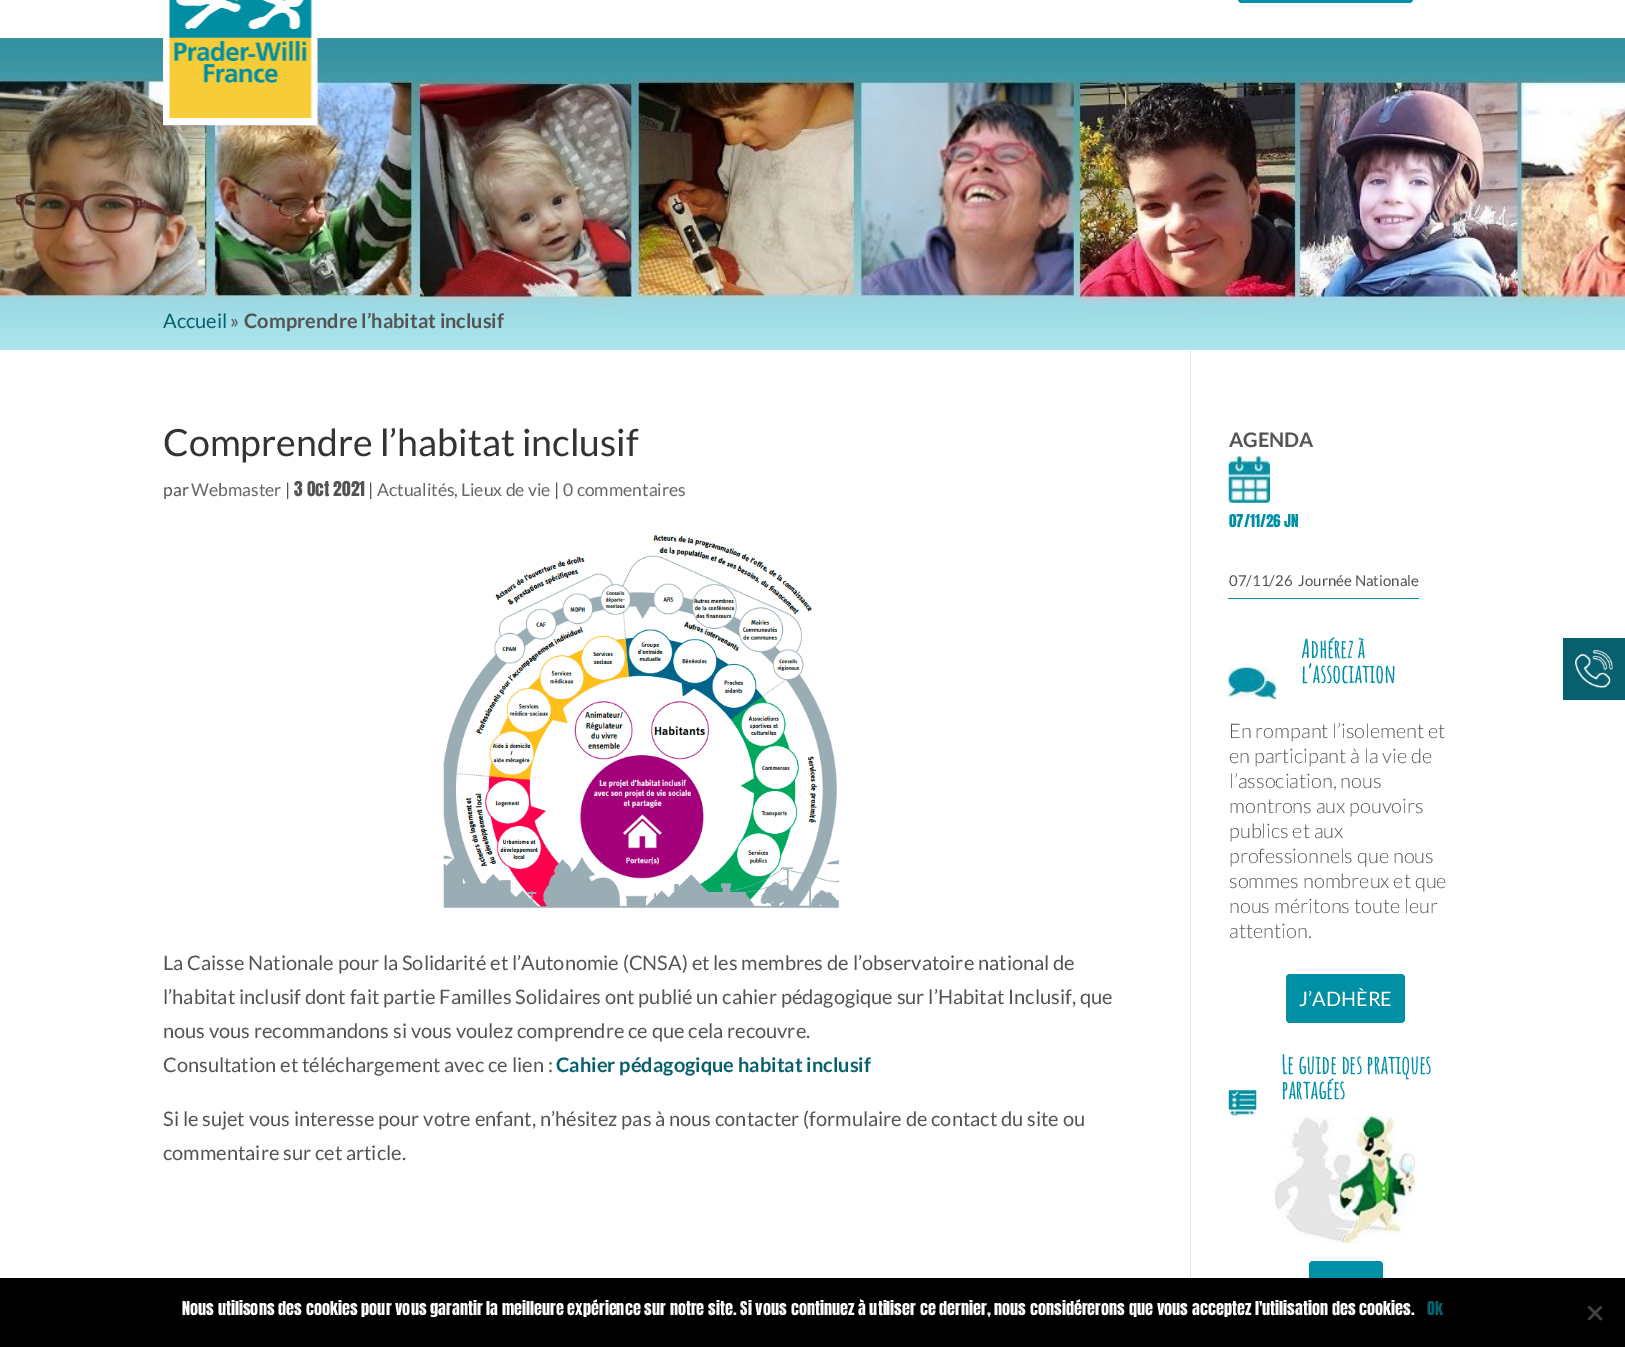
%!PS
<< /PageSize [1625 1347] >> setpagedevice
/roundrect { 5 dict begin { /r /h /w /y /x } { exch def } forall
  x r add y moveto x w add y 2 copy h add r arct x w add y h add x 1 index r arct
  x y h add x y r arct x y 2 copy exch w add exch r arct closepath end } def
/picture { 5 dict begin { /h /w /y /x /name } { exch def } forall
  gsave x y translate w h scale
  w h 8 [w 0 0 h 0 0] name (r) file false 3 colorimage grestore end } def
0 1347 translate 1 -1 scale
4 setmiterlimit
1 setgray
0 0 1625 1347 rectfill
(img2.rgb) 0 38 1625 312 picture
(img1.rgb) 163 0 155 126 picture
0 0.565 0.651 setrgbcolor
1238 -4 175 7 4 roundrect fill
/Lato-Regular [20 0 0 -20 0 0] selectfont
0.031 0.376 0.431 setrgbcolor
163 328 moveto (Accueil) show
0.329 setgray
230 328 moveto (») show
/Lato-Bold [20 0 0 -20 0 0] selectfont
244 328 moveto (Comprendre l’habitat inclusif) show
0.886 setgray
1190 350 1 928 rectfill
/Lato-Regular [37.5 0 0 -37.5 0 0] selectfont
0.2 setgray
163 456 moveto (Comprendre l’habitat inclusif) show
/Lato-Regular [17.5 0 0 -17.5 0 0] selectfont
0.329 setgray
163 496 moveto (par) show
0.4 setgray
191 496 moveto (Webmaster) show
0.329 setgray
285 496 moveto (|) show
/Anton-Regular [17.5 0 0 -17.5 0 0] selectfont
294 496 moveto (3 Oct 2021) show
/Lato-Regular [17.5 0 0 -17.5 0 0] selectfont
368 496 moveto (|) show
0.4 setgray
377 496 moveto (Actualités) show
0.329 setgray
454 496 moveto (,) show
0.4 setgray
461 496 moveto (Lieux de vie) show
0.329 setgray
554 496 moveto (|) show
0.4 setgray
563 496 moveto (0 commentaires) show
(img3.rgb) 443 535 396 373 picture
/Lato-Regular [20 0 0 -20 0 0] selectfont
0.329 setgray
163 970 moveto (La Caisse Nationale pour la Solidarité et l’Autonomie \(CNSA\) et les membres de l’observatoire national de) show
163 1004 moveto (l’habitat inclusif dont fait partie Familles Solidaires ont publié un cahier pédagogique sur l’Habitat Inclusif, que) show
163 1038 moveto (nous vous recommandons si vous voulez comprendre ce que cela recouvre.) show
163 1072 moveto (Consultation et téléchargement avec ce lien :) show
/Lato-Bold [20 0 0 -20 0 0] selectfont
0.031 0.376 0.431 setrgbcolor
556 1072 moveto (Cahier pédagogique habitat inclusif) show
/Lato-Regular [20 0 0 -20 0 0] selectfont
0.329 setgray
163 1126 moveto (Si le sujet vous interesse pour votre enfant, n’hésitez pas à nous contacter \(formulaire de contact du site ou) show
163 1160 moveto (commentaire sur cet article.) show
/Lato-Bold [20 0 0 -20 0 0] selectfont
1229 447 moveto (AGENDA) show
(img4.rgb) 1228 456 42 47 picture
/Anton-Regular [15 0 0 -15 0 0] selectfont
0 0.565 0.651 setrgbcolor
1229 527 moveto (07/11/26 JN) show
1228 598 191 1 rectfill
/Lato-Regular [15 0 0 -15 0 0] selectfont
0.329 setgray
1229 586 moveto (07/11/26  Journée Nationale) show
(img5.rgb) 1228 667 49 32 picture
/AmaticSC-Bold [25 0 0 -25 0 0] selectfont
0 0.565 0.651 setrgbcolor
1301 658 moveto (Adhérez à) show
1301 683 moveto (l’association) show
/Lato-Light [20 0 0 -20 0 0] selectfont
0.329 setgray
1229 738 moveto (En rompant l’isolement et) show
1229 763 moveto (en participant à la vie de) show
1229 788 moveto (l’association, nous) show
1229 813 moveto (montrons aux pouvoirs) show
1229 838 moveto (publics et aux) show
1229 863 moveto (professionnels que nous) show
1229 888 moveto (sommes nombreux et que) show
1229 913 moveto (nous méritons toute leur) show
1229 938 moveto (attention.) show
0 0.565 0.651 setrgbcolor
1286 974 119 49 4 roundrect fill
/Lato-Regular [20 0 0 -20 0 0] selectfont
1 setgray
1299 1006 moveto (J’ADHÈRE) show
/AmaticSC-Bold [25 0 0 -25 0 0] selectfont
0 0.565 0.651 setrgbcolor
1281 1074 moveto (Le guide des pratiques) show
1281 1099 moveto (partagées) show
(img6.rgb) 1228 1090 29 26 picture
(img7.rgb) 1275 1116 140 127 picture
1309 1261 74 49 4 roundrect fill
0.031 0.376 0.431 setrgbcolor
1563 638 62 62 rectfill
(img8.rgb) 1575 650 38 38 picture
0 setgray
0 1278 1625 69 rectfill
/Anton-Regular [16.25 0 0 -16.25 0 0] selectfont
1 setgray
182 1315 moveto (Nous utilisons des cookies pour vous garantir la meilleure expérience sur notre site. Si vous continuez à utiliser ce dernier, nous considérerons que vous acceptez l'utilisation des cookies.) show
0.031 0.376 0.431 setrgbcolor
1427 1315 moveto (Ok) show
0.251 setgray
newpath 1600.5 1305.5 moveto 1602.5 1307.5 lineto 1589.5 1320.5 lineto 1587.5 1319 lineto closepath fill
newpath 1587.5 1307.5 moveto 1589.5 1305.5 lineto 1602.5 1319 lineto 1600.5 1320.5 lineto closepath fill
showpage
